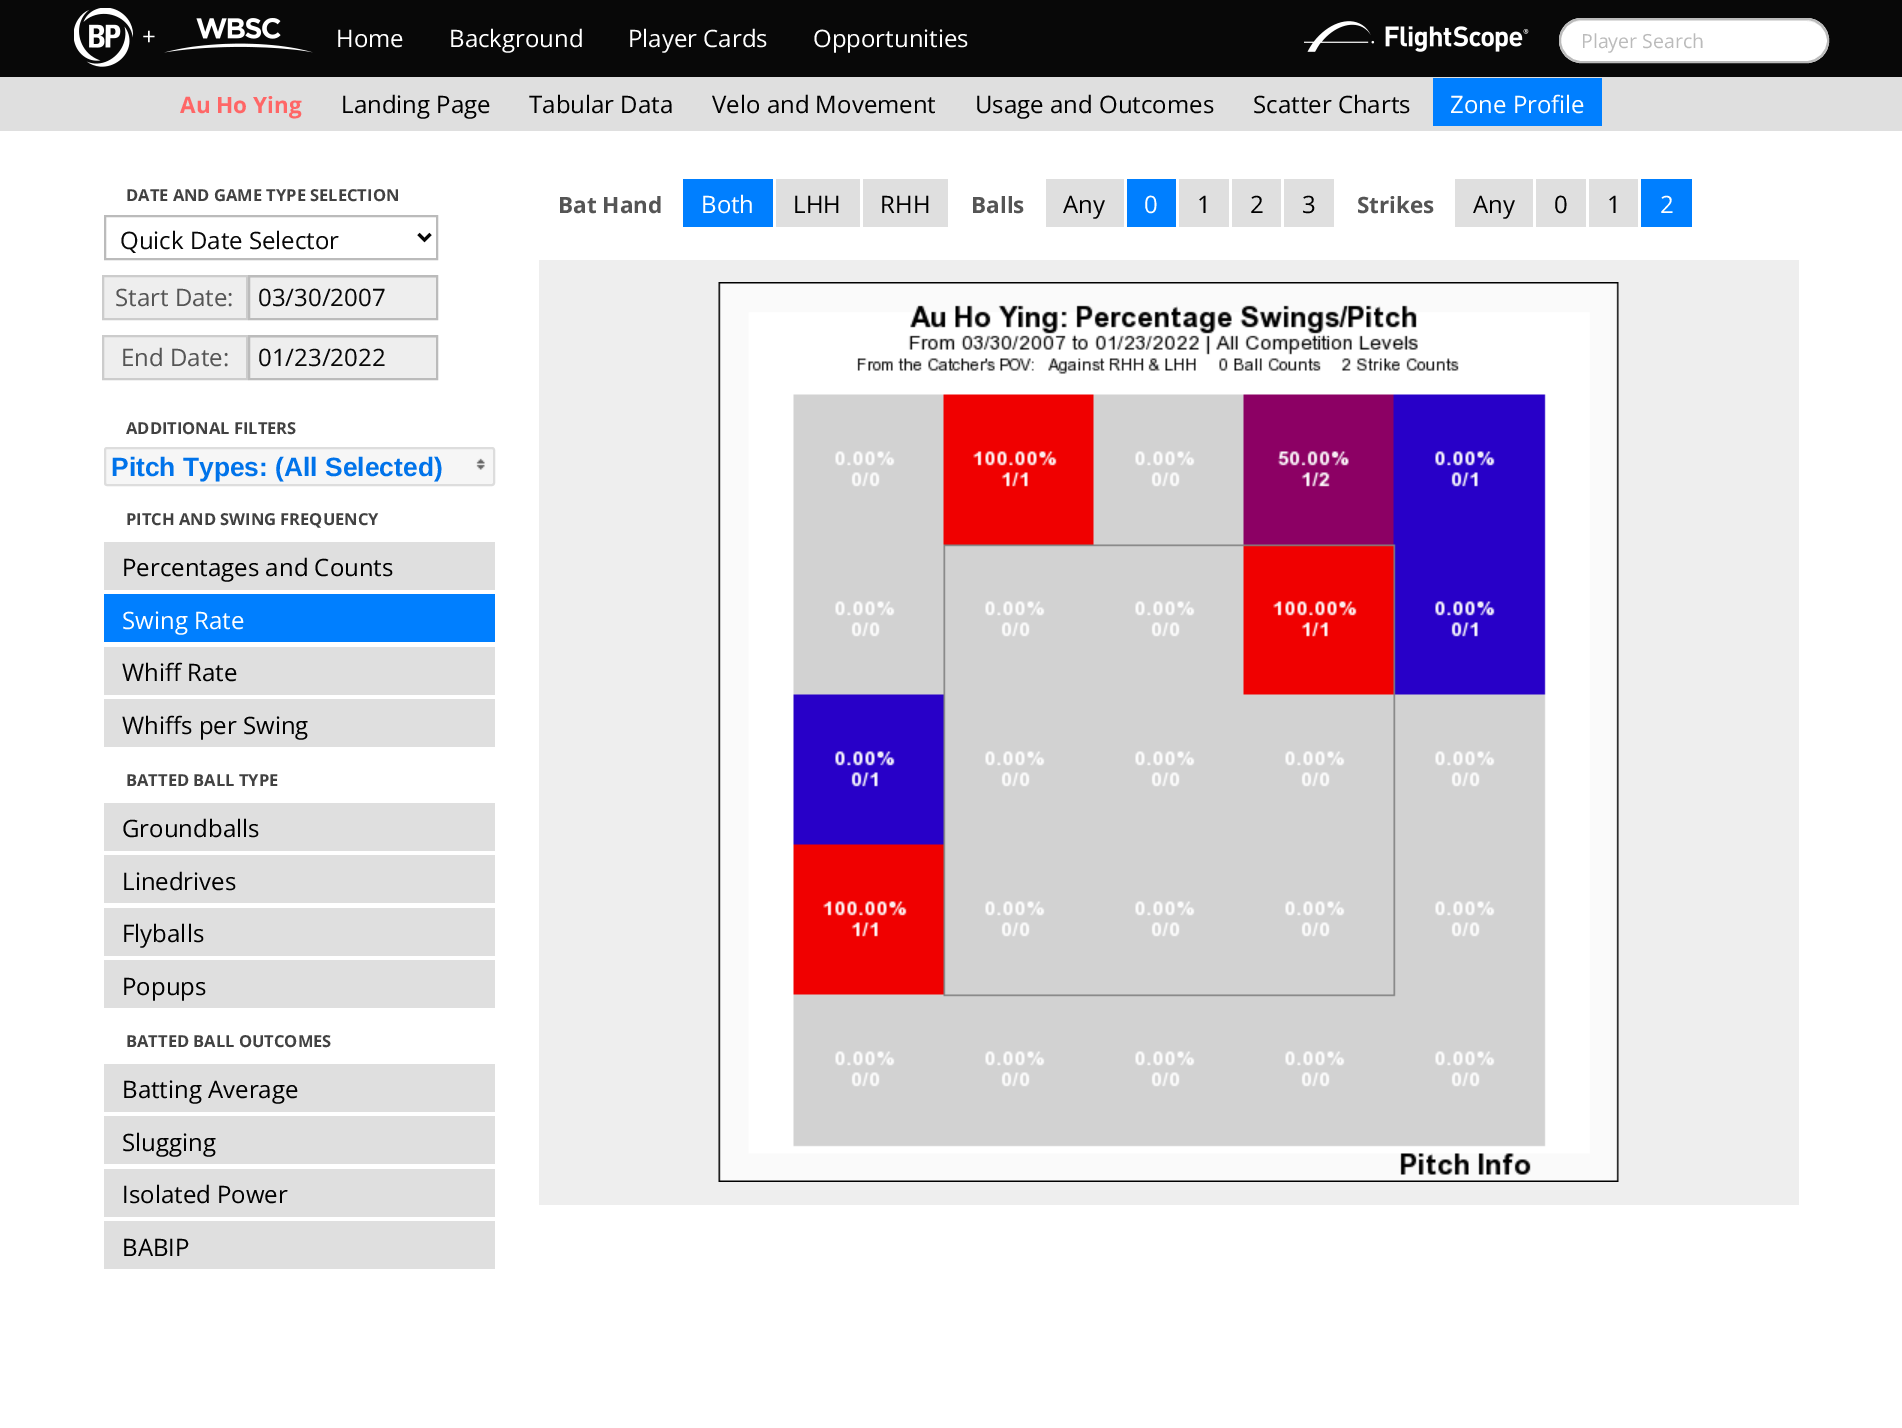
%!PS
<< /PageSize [1902 1428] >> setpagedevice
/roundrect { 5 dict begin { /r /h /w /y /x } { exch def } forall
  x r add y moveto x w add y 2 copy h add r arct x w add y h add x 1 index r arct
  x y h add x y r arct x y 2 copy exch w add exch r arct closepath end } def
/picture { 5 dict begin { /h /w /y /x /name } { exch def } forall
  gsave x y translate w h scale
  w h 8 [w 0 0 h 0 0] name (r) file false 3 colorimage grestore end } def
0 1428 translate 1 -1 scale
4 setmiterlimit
1 setgray
0 0 1902 1428 rectfill
0.031 setgray
0 0 1902 77 rectfill
(img1.rgb) 74 8 59 59 picture
/OpenSans-Regular [24 0 0 -24 0 0] selectfont
1 setgray
142 45 moveto (+) show
(img2.rgb) 164 18 149 35 picture
336 47 moveto (Home) show
449 47 moveto (Background) show
628 47 moveto (Player Cards) show
813 47 moveto (Opportunities) show
(img3.rgb) 1304 21 225 31 picture
1559 18 270 45 22.5 roundrect fill
0.925 setgray
newpath 1581 21 moveto 1806 21 lineto 1818 21 1827 30 1827 41 curveto 1828 12 1784 20 1768 20 curveto 1618 20 lineto 1603 20 1559 12 1560 41 curveto 1560 30 1569 21 1581 21 curveto closepath fill
0.733 setgray
2 setlinewidth
1560 19 268 43 21.5 roundrect stroke
/OpenSans-Regular [19.5 0 0 -19.5 0 0] selectfont
1581 48 moveto (Player Search) show
0.875 setgray
0 77 1902 54 rectfill
/OpenSans-Bold [22.5 0 0 -22.5 0 0] selectfont
1 0.4 0.4 setrgbcolor
180 113 moveto (Au Ho Ying) show
/OpenSans-Regular [24 0 0 -24 0 0] selectfont
0 setgray
341 113 moveto (Landing Page) show
529 113 moveto (Tabular Data) show
712 113 moveto (Velo and Movement) show
975 113 moveto (Usage and Outcomes) show
1253 113 moveto (Scatter Charts) show
0 0.498 1 setrgbcolor
1433 78 169 48 rectfill
1 setgray
1450 113 moveto (Zone Profile) show
/OpenSans-Bold [16.5 0 0 -16.5 0 0] selectfont
0.259 setgray
126 201 moveto (DATE AND GAME TYPE SELECTION) show
0.733 setgray
105 216 332 43 rectstroke
0.031 setgray
3 setlinewidth
newpath 418.5 234 moveto 424.5 240 lineto 430.5 234 lineto stroke
/OpenSans-Regular [24 0 0 -24 0 0] selectfont
120 249 moveto (Quick Date Selector) show
0.933 setgray
newpath 103 276 moveto 247 276 lineto 247 319 lineto 103 319 lineto closepath gsave fill grestore
0.8 setgray
2 setlinewidth
stroke
0.333 setgray
115 306 moveto (Start Date:) show
0.933 setgray
250 278 186 40 rectfill
0.863 setgray
249 277 188 1 rectfill
0.733 setgray
249 276 188 43 rectstroke
0.031 setgray
258 306 moveto (03/30/2007) show
0.933 setgray
newpath 103 336 moveto 247 336 lineto 247 379 lineto 103 379 lineto closepath gsave fill grestore
0.8 setgray
stroke
0.333 setgray
121 366 moveto (End Date:) show
0.933 setgray
250 338 186 40 rectfill
0.863 setgray
249 337 188 1 rectfill
0.733 setgray
249 336 188 43 rectstroke
0.031 setgray
258 366 moveto (01/23/2022) show
/OpenSans-Bold [16.5 0 0 -16.5 0 0] selectfont
0.259 setgray
126 434 moveto (ADDITIONAL FILTERS) show
0.965 setgray
104 447 391 39 3 roundrect fill
(img4.rgb) 104 484 2 2 picture
0.867 setgray
105 448 389 37 2 roundrect stroke
/LiberationSans-Bold [26.4 0 0 -26.4 0 0] selectfont
0 0.451 0.918 setrgbcolor
111 476 moveto (Pitch Types: \(All Selected\)) show
(img5.rgb) 476 458 9 12 picture
/OpenSans-Bold [16.5 0 0 -16.5 0 0] selectfont
0.259 setgray
126 525 moveto (PITCH AND SWING FREQUENCY) show
0.875 setgray
104 542 391 48 rectfill
/OpenSans-Regular [24 0 0 -24 0 0] selectfont
0 setgray
122 576 moveto (Percentages and Counts) show
0 0.498 1 setrgbcolor
104 594 391 48 rectfill
1 setgray
122 629 moveto (Swing Rate) show
0.875 setgray
104 647 391 48 rectfill
0 setgray
122 681 moveto (Whiff Rate) show
0.875 setgray
104 699 391 48 rectfill
0 setgray
122 734 moveto (Whiffs per Swing) show
/OpenSans-Bold [16.5 0 0 -16.5 0 0] selectfont
0.259 setgray
126 786 moveto (BATTED BALL TYPE) show
0.875 setgray
104 803 391 48 rectfill
/OpenSans-Regular [24 0 0 -24 0 0] selectfont
0 setgray
122 837 moveto (Groundballs) show
0.875 setgray
104 855 391 48 rectfill
0 setgray
122 890 moveto (Linedrives) show
0.875 setgray
104 908 391 48 rectfill
0 setgray
122 942 moveto (Flyballs) show
0.875 setgray
104 960 391 48 rectfill
0 setgray
122 995 moveto (Popups) show
/OpenSans-Bold [16.5 0 0 -16.5 0 0] selectfont
0.259 setgray
126 1047 moveto (BATTED BALL OUTCOMES) show
0.875 setgray
104 1064 391 48 rectfill
/OpenSans-Regular [24 0 0 -24 0 0] selectfont
0 setgray
122 1098 moveto (Batting Average) show
0.875 setgray
104 1116 391 48 rectfill
0 setgray
122 1151 moveto (Slugging) show
0.875 setgray
104 1169 391 48 rectfill
0 setgray
122 1203 moveto (Isolated Power) show
0.875 setgray
104 1221 391 48 rectfill
0 setgray
122 1256 moveto (BABIP) show
/OpenSans-Bold [22.5 0 0 -22.5 0 0] selectfont
0.333 setgray
558 213 moveto (Bat Hand) show
0 0.498 1 setrgbcolor
683 179 90 48 rectfill
/OpenSans-Regular [24 0 0 -24 0 0] selectfont
1 setgray
701 213 moveto (Both) show
0.875 setgray
776 179 84 48 rectfill
0 setgray
793 213 moveto (LHH) show
0.875 setgray
863 179 85 48 rectfill
0 setgray
880 213 moveto (RHH) show
/OpenSans-Bold [22.5 0 0 -22.5 0 0] selectfont
0.333 setgray
971 213 moveto (Balls) show
0.875 setgray
1046 179 78 48 rectfill
/OpenSans-Regular [24 0 0 -24 0 0] selectfont
0 setgray
1063 213 moveto (Any) show
0 0.498 1 setrgbcolor
1127 179 49 48 rectfill
1 setgray
1144 213 moveto (0) show
0.875 setgray
1179 179 50 48 rectfill
0 setgray
1197 213 moveto (1) show
0.875 setgray
1232 179 49 48 rectfill
0 setgray
1250 213 moveto (2) show
0.875 setgray
1284 179 50 48 rectfill
0 setgray
1302 213 moveto (3) show
/OpenSans-Bold [22.5 0 0 -22.5 0 0] selectfont
0.333 setgray
1357 213 moveto (Strikes) show
0.875 setgray
1455 179 78 48 rectfill
/OpenSans-Regular [24 0 0 -24 0 0] selectfont
0 setgray
1473 213 moveto (Any) show
0.875 setgray
1536 179 50 48 rectfill
0 setgray
1554 213 moveto (0) show
0.875 setgray
1589 179 49 48 rectfill
0 setgray
1607 213 moveto (1) show
0 0.498 1 setrgbcolor
1641 179 51 48 rectfill
1 setgray
1660 213 moveto (2) show
0.933 setgray
539 260 1260 945 rectfill
(img6.rgb) 718 282 901 900 picture
showpage
